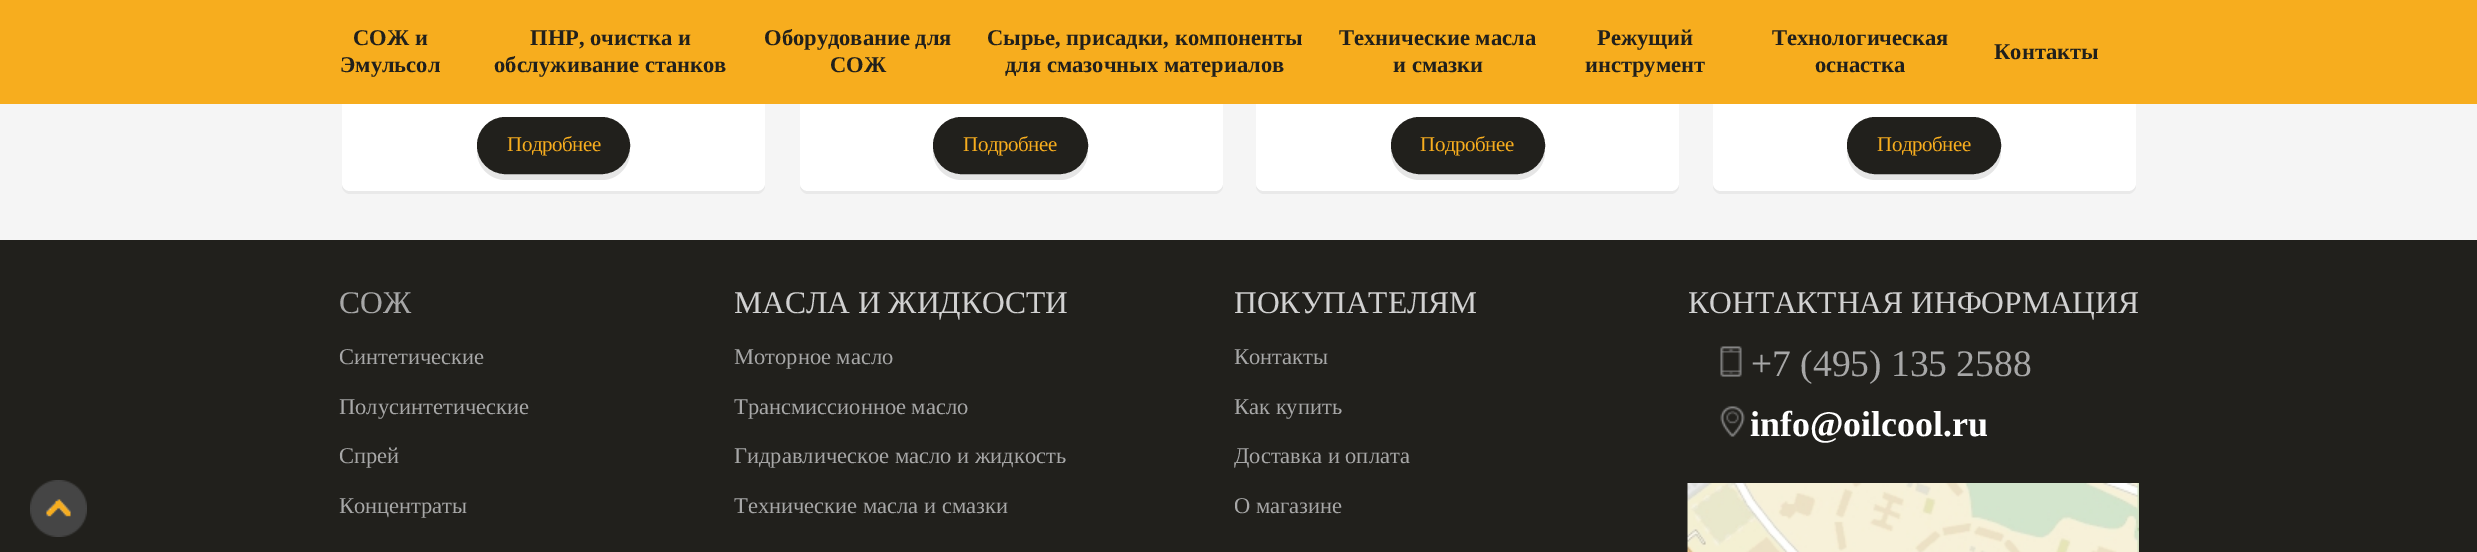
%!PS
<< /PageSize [2477 552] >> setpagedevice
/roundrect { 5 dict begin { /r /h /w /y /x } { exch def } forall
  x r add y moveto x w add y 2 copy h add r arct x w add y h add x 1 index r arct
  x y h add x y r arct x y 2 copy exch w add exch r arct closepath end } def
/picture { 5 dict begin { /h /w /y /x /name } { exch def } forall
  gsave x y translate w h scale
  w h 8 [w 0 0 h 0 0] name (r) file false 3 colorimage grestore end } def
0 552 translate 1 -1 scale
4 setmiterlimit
0.961 setgray
0 0 2477 552 rectfill
0.914 setgray
newpath 342 183 moveto 342 186 lineto 342 190 346 194 350 194 curveto 757 194 lineto 761 194 765 190 765 186 curveto 765 183 lineto 765 187 762 190 758 190 curveto 350 190 lineto 345 190 342 187 342 183 curveto closepath fill
1 setgray
342 -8 423 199 8 roundrect fill
0.914 setgray
newpath 800 186 moveto 800 190 804 194 808 194 curveto 1215 194 lineto 1219 194 1223 190 1223 186 curveto 1223 -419 lineto 1222 -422 lineto 1222 183 lineto 1222 187 1219 190 1215 190 curveto 807 190 lineto 804 190 801 189 800 186 curveto closepath fill
1 setgray
800 -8 423 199 8 roundrect fill
0.914 setgray
newpath 1256 186 moveto 1256 190 1260 194 1264 194 curveto 1671 194 lineto 1675 194 1679 190 1679 186 curveto 1679 -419 lineto 1678 -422 lineto 1678 183 lineto 1678 187 1675 190 1671 190 curveto 1263 190 lineto 1260 190 1257 189 1256 186 curveto closepath fill
1 setgray
1256 -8 423 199 8 roundrect fill
0.914 setgray
newpath 1713 183 moveto 1713 186 lineto 1713 190 1717 194 1721 194 curveto 2128 194 lineto 2132 194 2136 190 2136 186 curveto 2136 183 lineto 2136 187 2133 190 2128 190 curveto 1720 190 lineto 1716 190 1713 187 1713 183 curveto closepath fill
1 setgray
1713 -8 423 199 8 roundrect fill
0.969 0.678 0.118 setrgbcolor
0 0 2477 104 rectfill
/LiberationSerif-Bold [22.5 0 0 -22.5 0 0] selectfont
0.129 0.125 0.11 setrgbcolor
353 45 moveto (СОЖ и) show
340 72 moveto (Эмульсол) show
530 45 moveto (ПНР, очистка и) show
494 72 moveto (обслуживание станков) show
764 45 moveto (Оборудование для) show
830 72 moveto (СОЖ) show
987 45 moveto (Сырье, присадки, компоненты) show
1005 72 moveto (для смазочных материалов) show
1339 45 moveto (Технические масла) show
1393 72 moveto (и смазки) show
1597 45 moveto (Режущий) show
1585 72 moveto (инструмент) show
1772 45 moveto (Технологическая) show
1815 72 moveto (оснастка) show
1994 59 moveto (Контакты) show
0.902 setgray
newpath 477 148 moveto 477 152 lineto 477 167 490 180 506 180 curveto 602 180 lineto 617 180 630 167 630 152 curveto 630 148 lineto 628 163 616 174 602 174 curveto 506 174 lineto 491 174 479 163 477 148 curveto closepath fill
0.129 0.125 0.11 setrgbcolor
479.5 119.5 148 52 26 roundrect gsave fill grestore
5 setlinewidth
stroke
/LiberationSerif-Regular [21 0 0 -21 0 0] selectfont
0.969 0.678 0.118 setrgbcolor
507 151 moveto -0.5 0 (Подробнее) ashow
0.902 setgray
newpath 933 148 moveto 933 152 lineto 933 167 946 180 962 180 curveto 1060 180 lineto 1075 180 1088 167 1088 152 curveto 1087 146 lineto 1087 162 1075 174 1059 174 curveto 962 174 lineto 947 174 935 163 933 148 curveto closepath fill
0.129 0.125 0.11 setrgbcolor
935.5 119.5 150 52 26 roundrect gsave fill grestore
stroke
0.969 0.678 0.118 setrgbcolor
963 151 moveto -0.5 0 (Подробнее) ashow
0.902 setgray
newpath 1391 151 moveto 1391 152 lineto 1391 167 1404 180 1420 180 curveto 1516 180 lineto 1532 180 1545 167 1545 152 curveto 1545 148 lineto 1543 163 1531 174 1516 174 curveto 1419 174 lineto 1405 174 1394 164 1391 151 curveto closepath fill
0.129 0.125 0.11 setrgbcolor
1393.5 119.5 149 52 26 roundrect gsave fill grestore
stroke
0.969 0.678 0.118 setrgbcolor
1420 151 moveto -0.5 0 (Подробнее) ashow
0.902 setgray
newpath 1847 151 moveto 1847 152 lineto 1847 167 1860 180 1876 180 curveto 1972 180 lineto 1988 180 2001 167 2001 152 curveto 2001 148 lineto 1999 163 1987 174 1972 174 curveto 1875 174 lineto 1861 174 1850 164 1847 151 curveto closepath fill
0.129 0.125 0.11 setrgbcolor
1849.5 119.5 149 52 26 roundrect gsave fill grestore
stroke
0.969 0.678 0.118 setrgbcolor
1877 151 moveto -0.5 0 (Подробнее) ashow
0.129 0.125 0.11 setrgbcolor
0 240 2477 312 rectfill
(img1.rgb) 30 480 57 57 picture
/LiberationSerif-Regular [31.5 0 0 -31.5 0 0] selectfont
0.655 setgray
339 313 moveto (СОЖ) show
/LiberationSerif-Regular [22.5 0 0 -22.5 0 0] selectfont
339 364 moveto (Синтетические) show
339 414 moveto (Полусинтетические) show
339 463 moveto (Спрей) show
339 513 moveto (Концентраты) show
/LiberationSerif-Regular [31.5 0 0 -31.5 0 0] selectfont
0.82 setgray
734 313 moveto (МАСЛА И ЖИДКОСТИ) show
/LiberationSerif-Regular [22.5 0 0 -22.5 0 0] selectfont
0.655 setgray
734 364 moveto (Моторное масло) show
734 414 moveto (Трансмиссионное масло) show
734 463 moveto (Гидравлическое масло и жидкость) show
734 513 moveto (Технические масла и смазки) show
/LiberationSerif-Regular [31.5 0 0 -31.5 0 0] selectfont
0.82 setgray
1234 313 moveto (ПОКУПАТЕЛЯМ) show
/LiberationSerif-Regular [22.5 0 0 -22.5 0 0] selectfont
0.655 setgray
1234 364 moveto (Контакты) show
1234 414 moveto (Как купить) show
1234 463 moveto (Доставка и оплата) show
1234 513 moveto (О магазине) show
/LiberationSerif-Regular [31.5 0 0 -31.5 0 0] selectfont
0.82 setgray
1688 313 moveto (КОНТАКТНАЯ ИНФОРМАЦИЯ) show
(img2.rgb) 1720 346 22 31 picture
/LiberationSerif-Regular [37.5 0 0 -37.5 0 0] selectfont
0.655 setgray
1751 376 moveto (+7 \(495\) 135 2588) show
(img3.rgb) 1720 406 25 31 picture
/LiberationSerif-Bold [36 0 0 -36 0 0] selectfont
1 setgray
1750 436 moveto (info@oilcool.ru) show
(img4.rgb) 1687 483 452 69 picture
showpage
